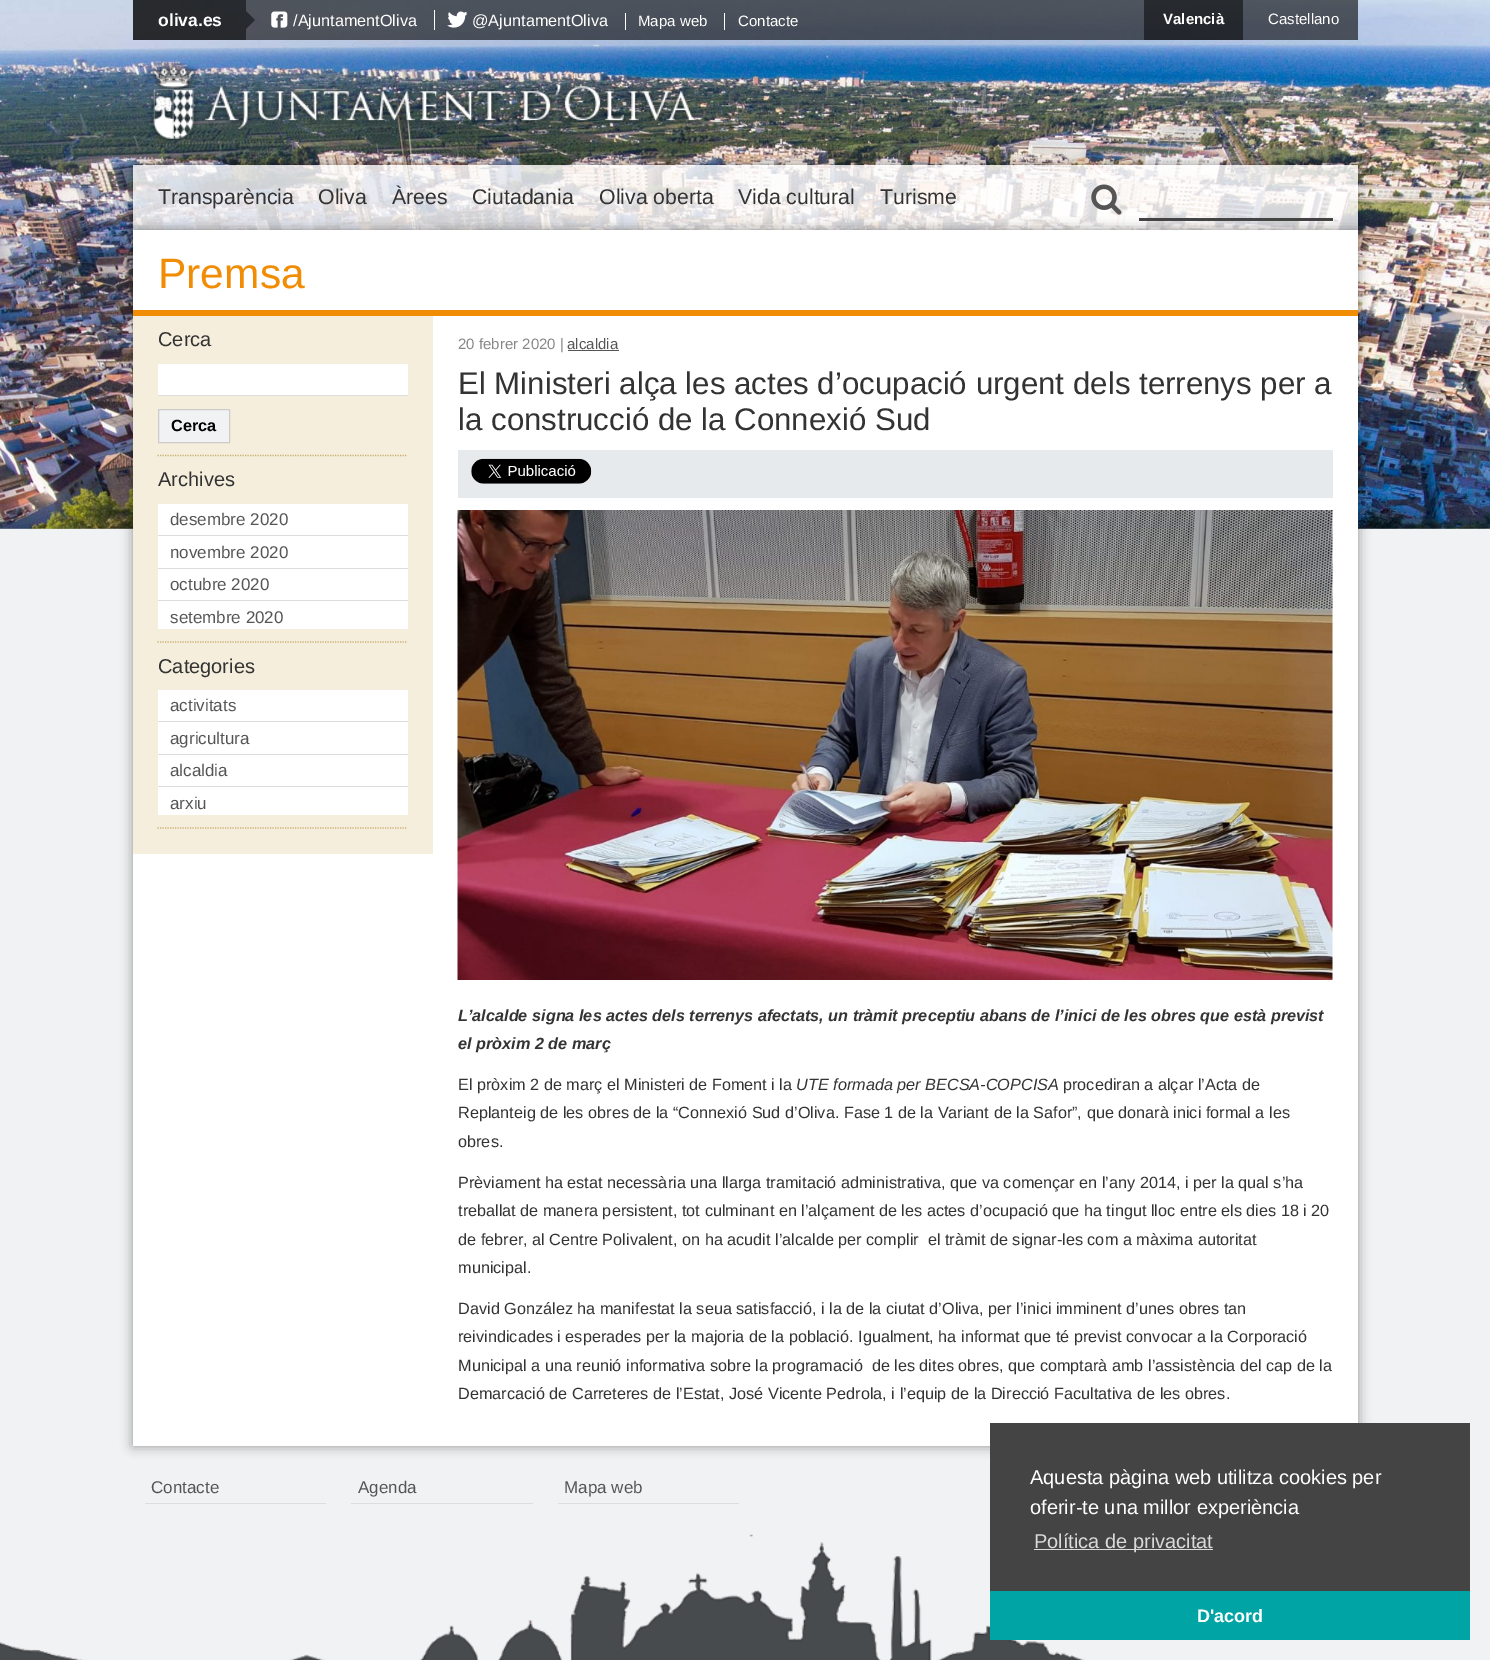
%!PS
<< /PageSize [1490 1660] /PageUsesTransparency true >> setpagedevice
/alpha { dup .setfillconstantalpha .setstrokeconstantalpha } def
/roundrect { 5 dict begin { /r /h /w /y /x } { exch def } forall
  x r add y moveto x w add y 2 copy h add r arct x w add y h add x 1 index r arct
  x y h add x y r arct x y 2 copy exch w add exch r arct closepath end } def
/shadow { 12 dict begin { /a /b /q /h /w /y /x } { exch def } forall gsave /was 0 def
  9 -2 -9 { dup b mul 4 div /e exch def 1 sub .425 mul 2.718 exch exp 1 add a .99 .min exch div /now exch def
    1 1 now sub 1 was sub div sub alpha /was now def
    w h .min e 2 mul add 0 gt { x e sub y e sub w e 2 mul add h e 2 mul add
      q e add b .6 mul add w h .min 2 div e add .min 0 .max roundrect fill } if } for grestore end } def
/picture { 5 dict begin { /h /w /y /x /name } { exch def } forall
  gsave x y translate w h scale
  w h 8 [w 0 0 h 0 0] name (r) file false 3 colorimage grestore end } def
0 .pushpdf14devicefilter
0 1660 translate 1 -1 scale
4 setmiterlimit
0.945 0.949 0.953 setrgbcolor
0 0 1490 1660 rectfill
(img1.rgb) 0 0 1490 529 picture
0.6 alpha
0 setgray
133 0 1225 40 rectfill
0.5 alpha
133 0 113 40 rectfill
/LiberationSans-Bold [17.5 0 0 -17.5 0 0] selectfont
1 alpha
1 setgray
158 26 moveto (oliva.es) show
0.153 0.165 0.18 setrgbcolor
newpath 246 29 moveto 246 11 lineto 255 20 lineto closepath fill
(img2.rgb) 271 11 17 17 picture
/LiberationSans-Regular [16.25 0 0 -16.25 0 0] selectfont
1 setgray
293 26 moveto (/AjuntamentOliva) show
434 10 1 20 rectfill
(img3.rgb) 447 11 21 17 picture
472 26 moveto (@AjuntamentOliva) show
625 13 1 17 rectfill
/LiberationSans-Regular [15 0 0 -15 0 0] selectfont
638 26 moveto (Mapa web) show
724 13 1 17 rectfill
738 26 moveto (Contacte) show
0.5 alpha
0 setgray
1144 0 99 40 rectfill
/LiberationSans-Bold [15 0 0 -15 0 0] selectfont
1 alpha
1 setgray
1163 24 moveto (Valencià) show
/LiberationSans-Regular [15 0 0 -15 0 0] selectfont
1268 24 moveto (Castellano) show
(img4.rgb) 148 62 551 82 picture
gsave
newpath 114 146 moveto 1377 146 lineto 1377 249 lineto 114 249 lineto closepath 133 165 moveto 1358 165 lineto 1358 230 lineto 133 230 lineto closepath eoclip newpath
0 setgray
133 165 1225 65 0 6 0.4 shadow
grestore
0.8 alpha
133 165 1225 65 rectfill
/LiberationSans-Regular [21.25 0 0 -21.25 0 0] selectfont
1 alpha
0.2 setgray
158 204 moveto (Transparència) show
318 204 moveto (Oliva) show
392 204 moveto (Àrees) show
472 204 moveto (Ciutadania) show
599 204 moveto (Oliva oberta) show
738 204 moveto (Vida cultural) show
880 204 moveto (Turisme) show
0 setgray
133 230 1225 1216 0 6 0.4 shadow
(img5.rgb) 1091 184 31 31 picture
0.267 setgray
1139 218 194 3 rectfill
1 setgray
133 230 1225 1216 rectfill
0.945 0.553 0.02 setrgbcolor
133 310 1225 6 rectfill
/LiberationSans-Regular [42.5 0 0 -42.5 0 0] selectfont
158 288 moveto (Premsa) show
0.961 0.933 0.863 setrgbcolor
133 316 300 538 rectfill
0.788 0.686 0.447 setrgbcolor
1.2 setlinewidth
[1.25 1.25] 0 setdash
newpath 157.5 455.5 moveto 407.5 455.5 lineto stroke
/LiberationSans-Regular [20 0 0 -20 0 0] selectfont
0.2 setgray
158 346 moveto (Cerca) show
1 setgray
158 364 250 31 rectfill
0.867 setgray
158 395 250 1 rectfill
0.945 0.949 0.953 setrgbcolor
newpath 158.5 409.5 moveto 229.5 409.5 lineto 229.5 442.5 lineto 158.5 442.5 lineto closepath gsave fill grestore
0.8 setgray
1 setlinewidth
[] 0 setdash
stroke
/LiberationSans-Bold [16.25 0 0 -16.25 0 0] selectfont
0 setgray
171 431 moveto (Cerca) show
0.788 0.686 0.447 setrgbcolor
1.2 setlinewidth
[1.25 1.25] 0 setdash
newpath 157.5 642 moveto 407.5 642 lineto stroke
/LiberationSans-Regular [20 0 0 -20 0 0] selectfont
0.2 setgray
158 486 moveto (Archives) show
1 setgray
158 504 250 31 rectfill
0.867 setgray
158 535 250 1 rectfill
/LiberationSans-Regular [17 0 0 -17 0 0] selectfont
0.333 setgray
170 525 moveto (desembre 2020) show
1 setgray
158 536 250 32 rectfill
0.867 setgray
158 568 250 1 rectfill
0.333 setgray
170 558 moveto (novembre 2020) show
1 setgray
158 569 250 31 rectfill
0.867 setgray
158 600 250 1 rectfill
0.333 setgray
170 590 moveto (octubre 2020) show
1 setgray
158 601 250 28 rectfill
0.333 setgray
170 623 moveto (setembre 2020) show
0.788 0.686 0.447 setrgbcolor
newpath 157.5 828 moveto 407.5 828 lineto stroke
/LiberationSans-Regular [20 0 0 -20 0 0] selectfont
0.2 setgray
158 673 moveto (Categories) show
1 setgray
158 690 250 64 rectfill
0.867 setgray
158 721 250 1 rectfill
/LiberationSans-Regular [17 0 0 -17 0 0] selectfont
0.333 setgray
170 711 moveto (activitats) show
0.867 setgray
158 754 250 1 rectfill
0.333 setgray
170 744 moveto (agricultura) show
1 setgray
158 755 250 60 rectfill
0.867 setgray
158 786 250 1 rectfill
0.333 setgray
170 776 moveto (alcaldia) show
170 809 moveto (arxiu) show
/LiberationSans-Regular [15 0 0 -15 0 0] selectfont
0.533 setgray
458 349 moveto (20 febrer 2020 |) show
0.333 setgray
567 349 moveto (alcaldia) show
568 350 51 1 rectfill
/LiberationSans-Regular [31.25 0 0 -31.25 0 0] selectfont
0.2 setgray
458 394 moveto (El Ministeri alça les actes d’ocupació urgent dels terrenys per a) show
458 430 moveto (la construcció de la Connexió Sud) show
0.906 0.918 0.925 setrgbcolor
458 450 875 48 rectfill
(img6.rgb) 471 458 121 26 picture
(img7.rgb) 457 510 876 470 picture
/LiberationSans-BoldItalic [16.25 0 0 -16.25 0 0] selectfont
0.2 setgray
458 1021 moveto (L’alcalde signa les actes dels terrenys afectats, un tràmit preceptiu abans de l’inici de les obres que està previst) show
458 1049 moveto (el pròxim 2 de març) show
/LiberationSans-Regular [16.25 0 0 -16.25 0 0] selectfont
458 1090 moveto (El pròxim 2 de març el Ministeri de Foment i la) show
/LiberationSans-Italic [16.25 0 0 -16.25 0 0] selectfont
796 1090 moveto (UTE formada per BECSA-COPCISA) show
/LiberationSans-Regular [16.25 0 0 -16.25 0 0] selectfont
1063 1090 moveto (procediran a alçar l’Acta de) show
458 1118 moveto (Replanteig de les obres de la “Connexió Sud d’Oliva. Fase 1 de la Variant de la Safor”, que donarà inici formal a les) show
458 1147 moveto (obres.) show
458 1188 moveto (Prèviament ha estat necessària una llarga tramitació administrativa, que va començar en l’any 2014, i per la qual s’ha) show
458 1216 moveto (treballat de manera persistent, tot culminant en l’alçament de les actes d’ocupació que ha tingut lloc entre els dies 18 i 20) show
458 1245 moveto (de febrer, al Centre Polivalent, on ha acudit l’alcalde per complir  el tràmit de signar-les com a màxima autoritat) show
458 1273 moveto (municipal.) show
458 1314 moveto (David González ha manifestat la seua satisfacció, i la de la ciutat d’Oliva, per l’inici imminent d’unes obres tan) show
458 1342 moveto (reivindicades i esperades per la majoria de la població. Igualment, ha informat que té previst convocar a la Corporació) show
458 1371 moveto (Municipal a una reunió informativa sobre la programació  de les dites obres, que comptarà amb l’assistència del cap de la) show
458 1399 moveto (Demarcació de Carreteres de l’Estat, José Vicente Pedrola, i l’equip de la Direcció Facultativa de les obres.) show
0.867 setgray
145 1503 181 1 rectfill
/LiberationSans-Regular [17 0 0 -17 0 0] selectfont
0.333 setgray
151 1493 moveto (Contacte) show
0.867 setgray
351 1503 182 1 rectfill
0.333 setgray
358 1493 moveto (Agenda) show
0.867 setgray
558 1503 181 1 rectfill
0.333 setgray
564 1493 moveto (Mapa web) show
(img8.rgb) 0 1534 1085 126 picture
0.267 setgray
990 1423 480 168 rectfill
/LiberationSans-Regular [20 0 0 -20 0 0] selectfont
1 setgray
1030 1484 moveto (Aquesta pàgina web utilitza cookies per) show
1030 1514 moveto (oferir-te una millor experiència) show
0.855 setgray
1034 1549 179 1 rectfill
1034 1548 moveto (Política de privacitat) show
0 0.643 0.643 setrgbcolor
990 1591 480 49 rectfill
/LiberationSans-Bold [18 0 0 -18 0 0] selectfont
1 setgray
1197 1622 moveto (D'acord) show
.poppdf14devicefilter showpage
